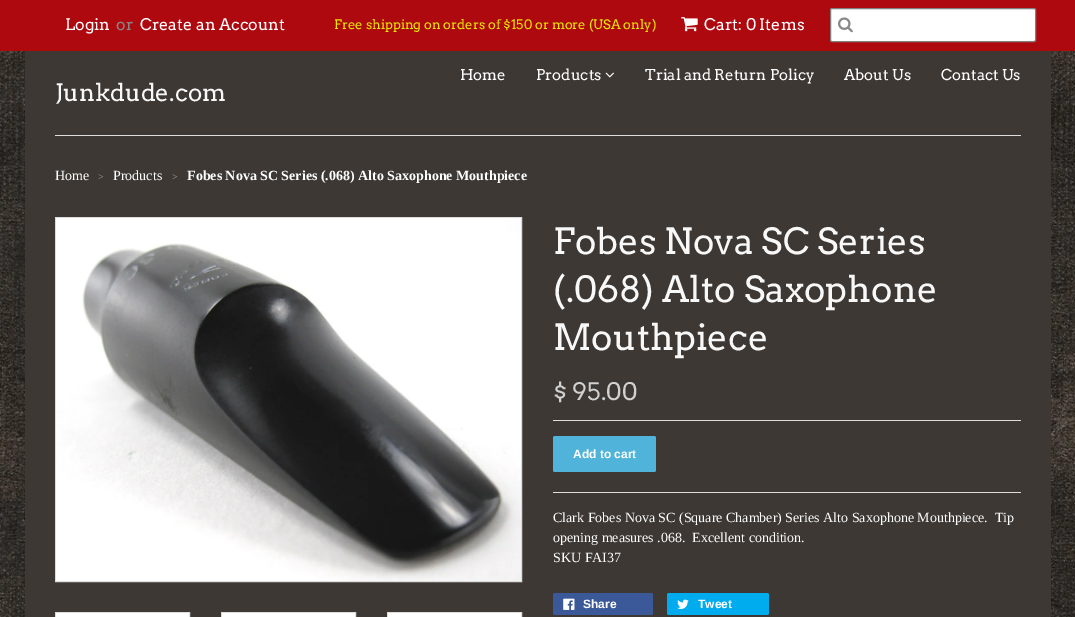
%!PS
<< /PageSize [1075 617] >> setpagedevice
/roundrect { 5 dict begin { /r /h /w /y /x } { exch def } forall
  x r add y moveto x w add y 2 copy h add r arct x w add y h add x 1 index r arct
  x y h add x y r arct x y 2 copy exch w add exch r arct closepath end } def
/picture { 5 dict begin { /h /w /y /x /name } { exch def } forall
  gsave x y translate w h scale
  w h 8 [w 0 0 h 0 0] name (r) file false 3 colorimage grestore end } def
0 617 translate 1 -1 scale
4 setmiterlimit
1 setgray
0 0 1075 617 rectfill
(img1.rgb) 0 51 1075 566 picture
0.686 0.035 0.063 setrgbcolor
0 0 1075 50 rectfill
0.686 0.039 0.039 setrgbcolor
0 50 1075 1 rectfill
/Arvo-Regular [16 0 0 -16 0 0] selectfont
1 setgray
65 30 moveto (Login) show
0.533 setgray
116 30 moveto (or) show
1 setgray
140 30 moveto (Create an Account) show
/Arvo-Regular [13 0 0 -13 0 0] selectfont
0.902 0.902 0 setrgbcolor
334 29 moveto (Free shipping on orders of $150 or more \(USA only\)) show
(img2.rgb) 681 17 17 15 picture
/Arvo-Regular [16 0 0 -16 0 0] selectfont
1 setgray
704 30 moveto (Cart: 0 Items) show
830.5 8.5 205 33 1.5 roundrect gsave fill grestore
0.498 setgray
stroke
(img3.rgb) 838 17 15 16 picture
0.239 0.22 0.204 setrgbcolor
25 51 1026 566 rectfill
0.867 setgray
55 135 966 1 rectfill
/Arvo-Regular [15 0 0 -15 0 0] selectfont
1 setgray
460 80 moveto (Home) show
536 80 moveto (Products) show
(img4.rgb) 605 72 9 6 picture
645 80 moveto (Trial and Return Policy) show
844 80 moveto (About Us) show
941 80 moveto (Contact Us) show
/Arvo-Regular [24 0 0 -24 0 0] selectfont
0.973 setgray
55 101 moveto (Junkdude.com) show
/LiberationSerif-Regular [14 0 0 -14 0 0] selectfont
1 setgray
55 180 moveto (Home) show
/LiberationSerif-Regular [10 0 0 -10 0 0] selectfont
0.62 0.612 0.604 setrgbcolor
98 180 moveto (>) show
/LiberationSerif-Regular [14 0 0 -14 0 0] selectfont
1 setgray
113 180 moveto (Products) show
/LiberationSerif-Regular [10 0 0 -10 0 0] selectfont
0.62 0.612 0.604 setrgbcolor
172 180 moveto (>) show
/LiberationSerif-Bold [14 0 0 -14 0 0] selectfont
1 setgray
187 180 moveto (Fobes Nova SC Series \(.068\) Alto Saxophone Mouthpiece) show
0.867 setgray
55.5 217.5 466 364 rectstroke
(img5.rgb) 56 218 465 363 picture
55.5 612.5 134 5 rectstroke
1 setgray
56 613 133 4 rectfill
0.867 setgray
221.5 612.5 134 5 rectstroke
1 setgray
222 613 133 4 rectfill
0.867 setgray
387.5 612.5 134 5 rectstroke
1 setgray
388 613 133 4 rectfill
/Arvo-Regular [36 0 0 -36 0 0] selectfont
0.973 setgray
553 254 moveto (Fobes Nova SC Series) show
553 302 moveto (\(.068\) Alto Saxophone) show
553 350 moveto (Mouthpiece) show
/Arvo-Regular [24 0 0 -24 0 0] selectfont
0.82 setgray
553 400 moveto ($ 95.00) show
0.867 setgray
553 420 468 1 rectfill
553 492 468 1 rectfill
0.314 0.702 0.855 setrgbcolor
553 436 103 36 2 roundrect fill
/LiberationSans-Bold [12 0 0 -12 0 0] selectfont
1 setgray
573 458 moveto (Add to cart) show
/LiberationSerif-Regular [14 0 0 -14 0 0] selectfont
553 522 moveto (Clark Fobes Nova SC \(Square Chamber\) Series Alto Saxophone Mouthpiece.  Tip) show
553 542 moveto (opening measures .068.  Excellent condition.) show
553 562 moveto (SKU FAI37) show
0.231 0.349 0.596 setrgbcolor
553 593 100 22 2 roundrect fill
(img6.rgb) 563 598 12 12 picture
/LiberationSans-Bold [12 0 0 -12 0 0] selectfont
1 setgray
583 608 moveto (Share) show
0 0.675 0.929 setrgbcolor
667 593 102 22 2 roundrect fill
(img7.rgb) 677 599 12 10 picture
1 setgray
698 608 moveto (Tweet) show
showpage
